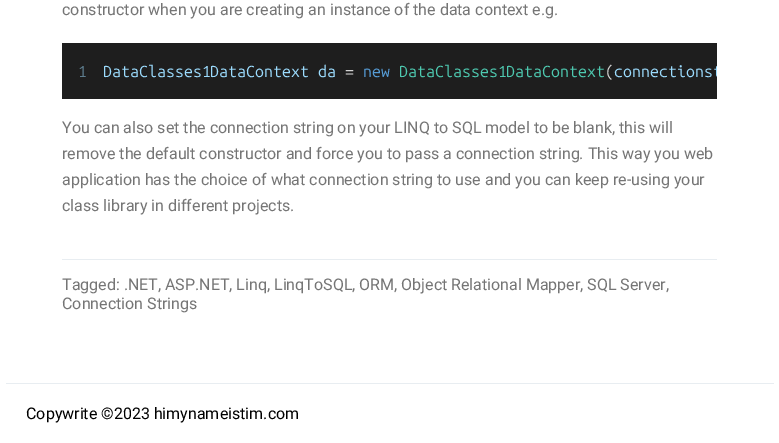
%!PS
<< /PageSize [779 443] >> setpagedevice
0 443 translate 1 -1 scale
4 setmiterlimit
1 setgray
0 0 779 443 rectfill
/Roboto-Regular [16 0 0 -16 0 0] selectfont
0.459 setgray
62 15 moveto (constructor when you are creating an instance of the data context e.g.) show
0.118 setgray
62 43 655 56 rectfill
/UbuntuMono-Regular [16 0 0 -16 0 0] selectfont
0.365 0.49 0.557 setrgbcolor
78 77 moveto (1) show
0.612 0.863 0.996 setrgbcolor
103 77 moveto (DataClasses1DataContext da) show
0.831 setgray
345 77 moveto (=) show
0.337 0.612 0.839 setrgbcolor
363 77 moveto (new) show
0.306 0.788 0.69 setrgbcolor
399 77 moveto (DataClasses1DataContext) show
0.831 setgray
605 77 moveto (\() show
gsave
62 43 655 56 rectclip
0.612 0.863 0.996 setrgbcolor
614 77 moveto (connectionst) show
grestore
/Roboto-Regular [16 0 0 -16 0 0] selectfont
0.459 setgray
62 133 moveto (You can also set the connection string on your LINQ to SQL model to be blank, this will) show
62 159 moveto (remove the default constructor and force you to pass a connection string. This way you web) show
62 185 moveto (application has the choice of what connection string to use and you can keep re-using your) show
62 211 moveto (class library in different projects.) show
0.91 0.929 0.945 setrgbcolor
62 259 655 1 rectfill
0.459 setgray
62 290 moveto (Tagged: .NET, ASP.NET, Linq, LinqToSQL, ORM, Object Relational Mapper, SQL Server,) show
62 309 moveto (Connection Strings) show
0.91 0.929 0.945 setrgbcolor
6 383 768 1 rectfill
0 setgray
26 419 moveto (Copywrite ©2023 himynameistim.com) show
showpage
